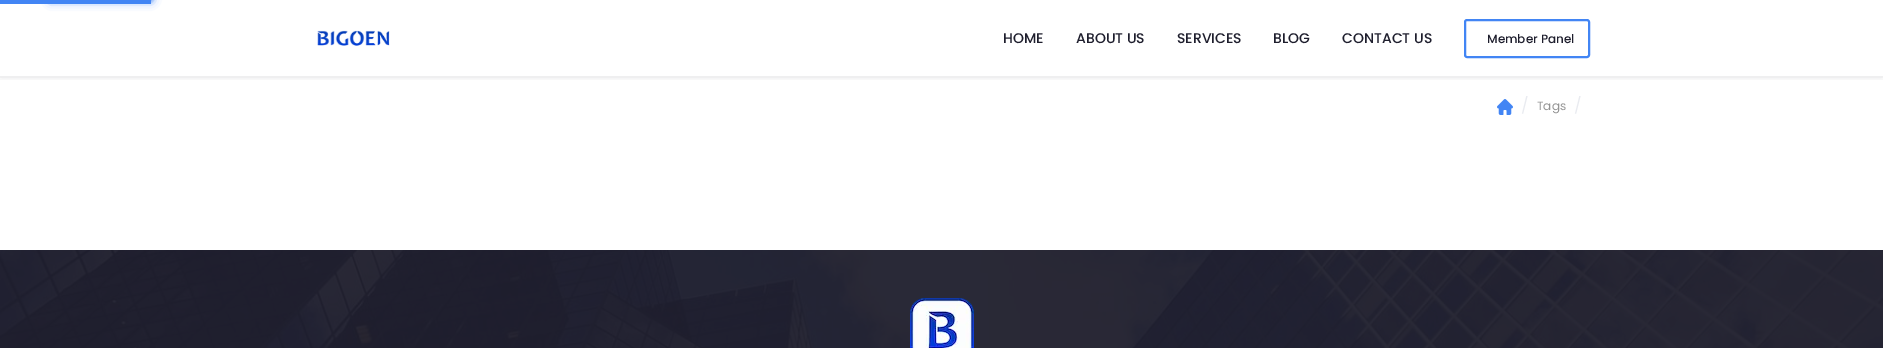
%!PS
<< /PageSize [1883 348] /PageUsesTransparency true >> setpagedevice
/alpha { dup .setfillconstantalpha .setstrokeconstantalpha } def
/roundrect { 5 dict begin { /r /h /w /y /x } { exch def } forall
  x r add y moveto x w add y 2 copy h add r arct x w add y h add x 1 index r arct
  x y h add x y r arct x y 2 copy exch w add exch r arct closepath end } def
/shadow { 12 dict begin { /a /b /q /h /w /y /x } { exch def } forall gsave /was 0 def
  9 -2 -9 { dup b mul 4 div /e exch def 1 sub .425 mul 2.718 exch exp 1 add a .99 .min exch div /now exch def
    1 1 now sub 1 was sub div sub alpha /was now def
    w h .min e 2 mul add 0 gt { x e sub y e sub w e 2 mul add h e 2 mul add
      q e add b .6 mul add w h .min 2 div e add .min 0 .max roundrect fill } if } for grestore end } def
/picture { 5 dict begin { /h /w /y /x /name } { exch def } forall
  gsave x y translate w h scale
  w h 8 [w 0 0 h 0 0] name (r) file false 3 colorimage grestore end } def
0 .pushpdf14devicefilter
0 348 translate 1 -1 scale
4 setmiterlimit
1 setgray
0 0 1883 348 rectfill
gsave
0 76 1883 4 rectclip
0.118 0.118 0.176 setrgbcolor
0 -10 1883 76 0 7 1 shadow
grestore
0.259 0.522 0.957 setrgbcolor
0 0 151 4 rectfill
gsave
newpath 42 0 moveto 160 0 lineto 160 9 lineto 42 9 lineto closepath 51 -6.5 moveto 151 -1.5 lineto 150.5 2.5 lineto 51 -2.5 lineto closepath eoclip newpath
51 -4 100 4 0 2.5 1 shadow
grestore
gsave
newpath 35 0 moveto 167 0 lineto 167 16 lineto 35 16 lineto closepath 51 -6.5 moveto 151 -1.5 lineto 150.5 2.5 lineto 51 -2.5 lineto closepath eoclip newpath
51 -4 100 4 0 5 1 shadow
grestore
(img1.rgb) 317 30 73 16 picture
/Poppins-Medium [14 0 0 -14 0 0] selectfont
0.118 0.118 0.176 setrgbcolor
1003 43 moveto (HOME) show
1076 43 moveto (ABOUT US) show
1177 43 moveto (SERVICES) show
1273 43 moveto (BLOG) show
1342 43 moveto (CONTACT US) show
0.259 0.522 0.957 setrgbcolor
2 setlinewidth
1465 20 124 37 2 roundrect stroke
/Poppins-Medium [12 0 0 -12 0 0] selectfont
0.118 0.118 0.176 setrgbcolor
1487 43 moveto (Member Panel) show
(img2.rgb) 1497 99 16 16 picture
/Poppins-Regular [16 0 0 -16 0 0] selectfont
0.914 0.922 0.941 setrgbcolor
1521 111 moveto (/) show
/Poppins-Regular [12 0 0 -12 0 0] selectfont
0.58 setgray
1537 110 moveto (Tags) show
/Poppins-Regular [16 0 0 -16 0 0] selectfont
0.914 0.922 0.941 setrgbcolor
1574 111 moveto (/) show
(img3.rgb) 0 250 1883 98 picture
(img4.rgb) 910 298 64 50 picture
.poppdf14devicefilter showpage
